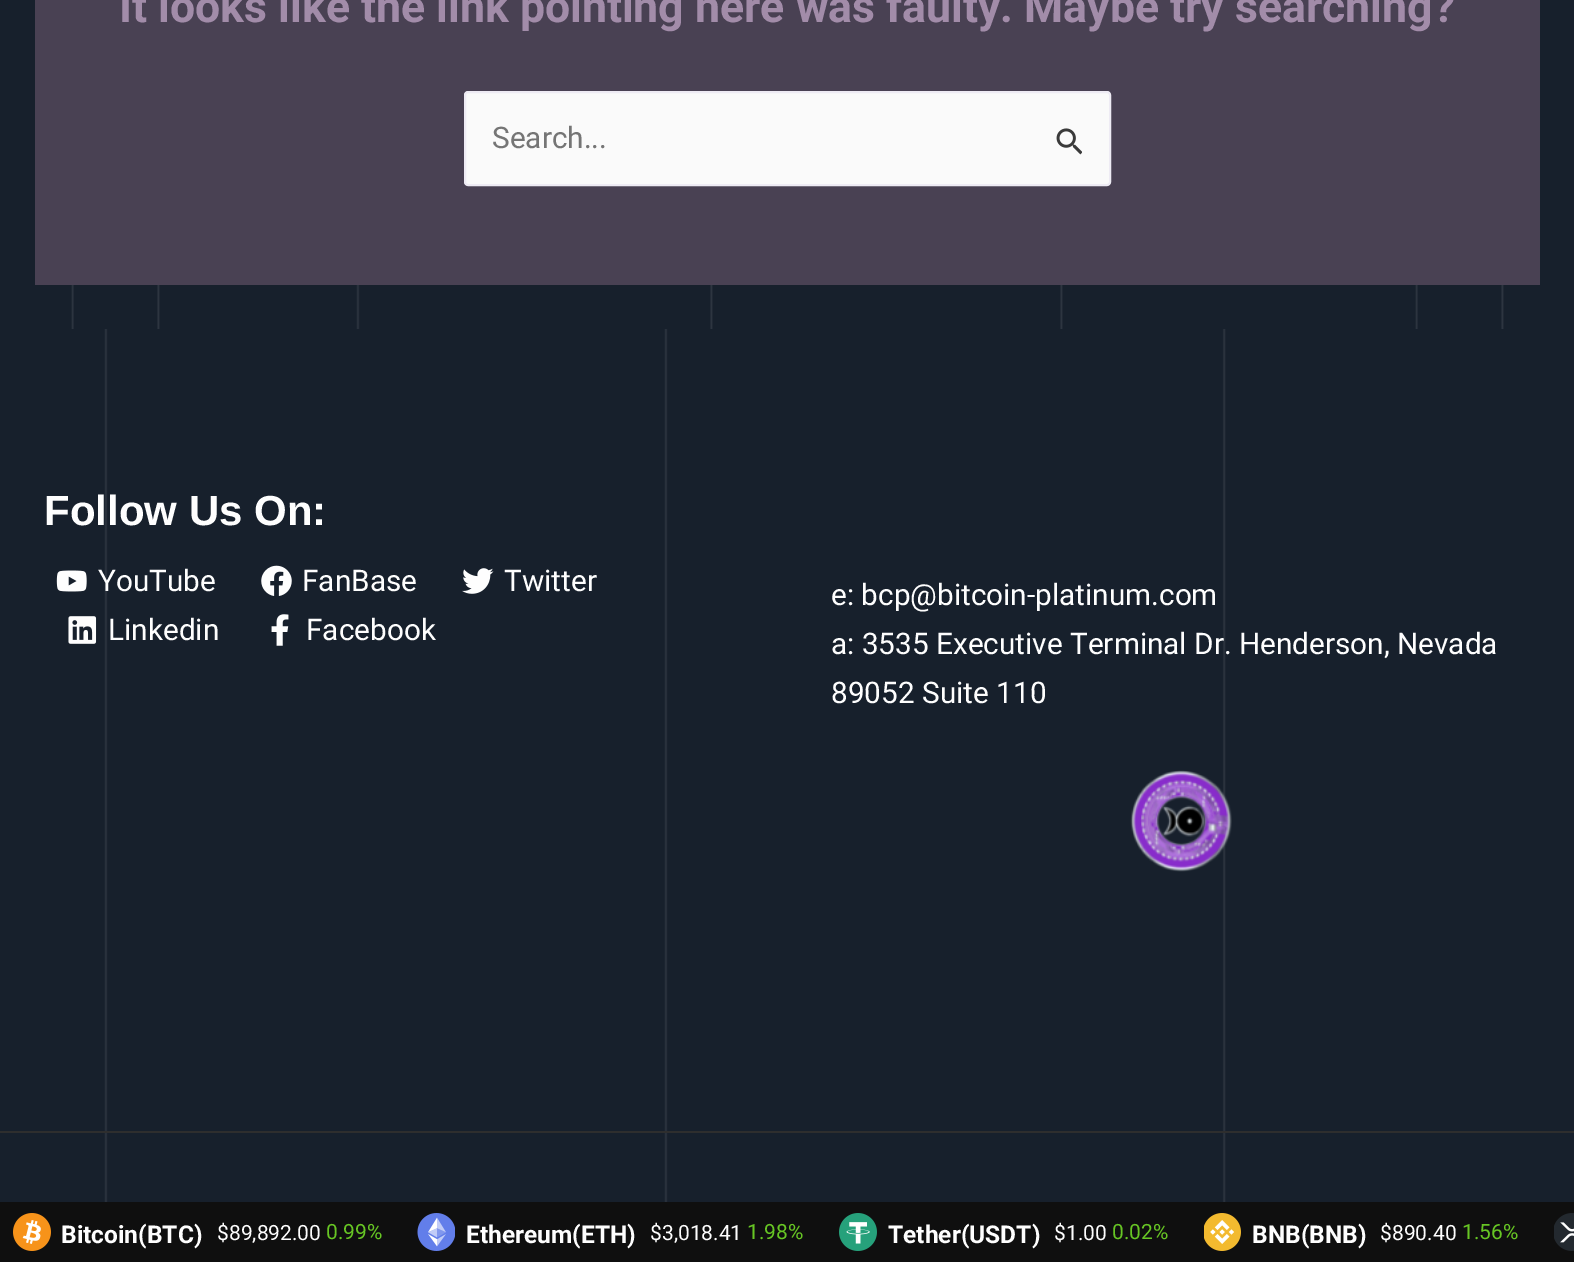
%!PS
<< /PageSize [1574 1262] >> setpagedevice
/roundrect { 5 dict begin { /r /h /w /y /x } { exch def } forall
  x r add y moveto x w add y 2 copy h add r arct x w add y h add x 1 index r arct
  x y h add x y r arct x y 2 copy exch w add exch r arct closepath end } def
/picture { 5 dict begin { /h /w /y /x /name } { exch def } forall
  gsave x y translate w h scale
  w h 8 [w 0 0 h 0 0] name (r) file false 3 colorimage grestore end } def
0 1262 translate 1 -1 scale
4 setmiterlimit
1 setgray
0 0 1574 1262 rectfill
(img1.rgb) 0 0 1574 1202 picture
0.286 0.255 0.325 setrgbcolor
35 0 1505 285 rectfill
/Roboto-Bold [44.6 0 0 -44.6 0 0] selectfont
0.635 0.549 0.663 setrgbcolor
119 22 moveto (It looks like the link pointing here was faulty. Maybe try searching?) show
0.98 setgray
465 92 645 93 3 roundrect gsave fill grestore
0.933 0.922 0.957 setrgbcolor
2 setlinewidth
stroke
/Roboto-Regular [29.75 0 0 -29.75 0 0] selectfont
0.459 setgray
492 148 moveto (Search...) show
(img2.rgb) 1056 128 26 27 picture
(img3.rgb) 71 329 1433 802 picture
/LiberationSans-Bold [42 0 0 -42 0 0] selectfont
0.996 setgray
44 525 moveto (Follow Us On:) show
(img4.rgb) 56 570 31 22 picture
/Roboto-Regular [29.75 0 0 -29.75 0 0] selectfont
98 591 moveto (YouTube) show
(img5.rgb) 261 565 31 31 picture
302 591 moveto (FanBase) show
(img6.rgb) 462 568 32 26 picture
504 591 moveto (Twitter) show
(img7.rgb) 68 616 29 28 picture
108 640 moveto (Linkedin) show
(img8.rgb) 271 614 18 32 picture
306 640 moveto (Facebook) show
831 605 moveto (e: bcp@bitcoin-platinum.com) show
831 654 moveto (a: 3535 Executive Terminal Dr. Henderson, Nevada) show
831 703 moveto (89052 Suite 110) show
(img9.rgb) 1130 770 102 102 picture
(img10.rgb) 71 1133 1433 69 picture
0.18 setgray
0 1131 1574 2 rectfill
0.059 setgray
0 1202 1574 60 rectfill
(img11.rgb) 13 1213 38 38 picture
/Roboto-Bold [24.5 0 0 -24.5 0 0] selectfont
0.996 setgray
61 1243 moveto (Bitcoin\(BTC\)) show
/Roboto-Regular [21 0 0 -21 0 0] selectfont
217 1240 moveto ($89,892.00) show
0.404 0.776 0.141 setrgbcolor
326 1239 moveto (0.99%) show
(img12.rgb) 417 1213 38 38 picture
/Roboto-Bold [24.5 0 0 -24.5 0 0] selectfont
0.996 setgray
466 1243 moveto (Ethereum\(ETH\)) show
/Roboto-Regular [21 0 0 -21 0 0] selectfont
650 1240 moveto ($3,018.41) show
0.404 0.776 0.141 setrgbcolor
747 1239 moveto (1.98%) show
(img13.rgb) 839 1213 38 38 picture
/Roboto-Bold [24.5 0 0 -24.5 0 0] selectfont
0.996 setgray
888 1243 moveto (Tether\(USDT\)) show
/Roboto-Regular [21 0 0 -21 0 0] selectfont
1054 1240 moveto ($1.00) show
0.404 0.776 0.141 setrgbcolor
1112 1239 moveto (0.02%) show
(img14.rgb) 1204 1213 37 38 picture
/Roboto-Bold [24.5 0 0 -24.5 0 0] selectfont
0.996 setgray
1252 1243 moveto (BNB\(BNB\)) show
/Roboto-Regular [21 0 0 -21 0 0] selectfont
1380 1240 moveto ($890.40) show
0.404 0.776 0.141 setrgbcolor
1462 1239 moveto (1.56%) show
(img15.rgb) 1554 1213 20 38 picture
showpage
